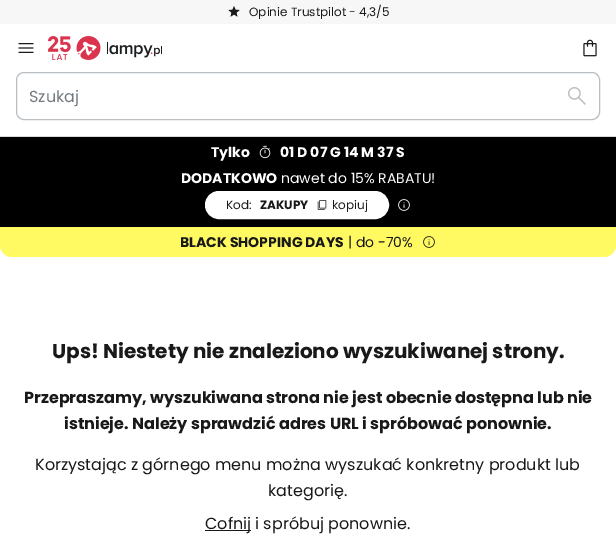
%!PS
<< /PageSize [616 552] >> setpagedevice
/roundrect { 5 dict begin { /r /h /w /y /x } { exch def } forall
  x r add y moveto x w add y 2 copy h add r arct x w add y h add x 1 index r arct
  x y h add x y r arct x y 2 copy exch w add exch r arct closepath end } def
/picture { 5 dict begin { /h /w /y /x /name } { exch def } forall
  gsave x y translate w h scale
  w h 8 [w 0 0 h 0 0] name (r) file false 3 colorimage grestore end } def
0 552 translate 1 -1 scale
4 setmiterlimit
1 setgray
0 0 616 552 rectfill
0.843 0.859 0.867 setrgbcolor
0 136 616 1 rectfill
0.969 0.969 0.973 setrgbcolor
0 0 616 24 rectfill
(img1.rgb) 228 6 12 11 picture
/Poppins-Regular [12 0 0 -12 0 0] selectfont
0.098 setgray
249 16 moveto (Opinie Trustpilot - 4,3/5) show
(img2.rgb) 18 43 16 10 picture
(img3.rgb) 48 36 114 24 picture
(img4.rgb) 583 39 14 18 picture
0.725 0.745 0.761 setrgbcolor
16.5 72.5 583 47 7.5 roundrect stroke
/Poppins-Regular [16 0 0 -16 0 0] selectfont
0.451 0.482 0.502 setrgbcolor
29 102 moveto (Szukaj) show
(img5.rgb) 568 87 18 18 picture
0 setgray
0 137 616 90 rectfill
/Poppins-Bold [14 0 0 -14 0 0] selectfont
1 setgray
211 157 moveto (Tylko) show
(img6.rgb) 259 145 12 14 picture
280 157 moveto (01 D 07 G 14 M 37 S) show
181 183 moveto (DODATKOWO) show
/Poppins-Regular [14 0 0 -14 0 0] selectfont
281 183 moveto (nawet do 15% RABATU!) show
205.5 191.5 183 27 13.5 roundrect gsave fill grestore
stroke
/Poppins-Regular [12 0 0 -12 0 0] selectfont
0.098 setgray
226 209 moveto (Kod:) show
/Poppins-Bold [12 0 0 -12 0 0] selectfont
260 209 moveto (ZAKUPY) show
(img7.rgb) 317 200 10 10 picture
/Poppins-Regular [12 0 0 -12 0 0] selectfont
332 209 moveto (kopiuj) show
(img8.rgb) 398 199 12 12 picture
1 0.976 0.384 setrgbcolor
newpath 0 227 moveto 616 227 lineto 616 245 lineto 616 251.5 610.5 257 604 257 curveto 12 257 lineto 5.5 257 0 251.5 0 245 curveto closepath fill
/Poppins-Bold [14 0 0 -14 0 0] selectfont
0.098 setgray
180 247 moveto (BLACK SHOPPING DAYS) show
/Poppins-Regular [14 0 0 -14 0 0] selectfont
348 247 moveto (| do -70%) show
(img9.rgb) 423 236 12 12 picture
/Poppins-Bold [20 0 0 -20 0 0] selectfont
52 358 moveto (Ups! Niestety nie znaleziono wyszukiwanej strony.) show
/Poppins-Bold [16 0 0 -16 0 0] selectfont
24 403 moveto (Przepraszamy, wyszukiwana strona nie jest obecnie dostępna lub nie) show
64 429 moveto (istnieje. Należy sprawdzić adres URL i spróbować ponownie.) show
/Poppins-Regular [16 0 0 -16 0 0] selectfont
35 470 moveto (Korzystając z górnego menu można wyszukać konkretny produkt lub) show
268 496 moveto (kategorię.) show
205 530 46 1 rectfill
205 529 moveto (Cofnij i spróbuj ponownie.) show
showpage
